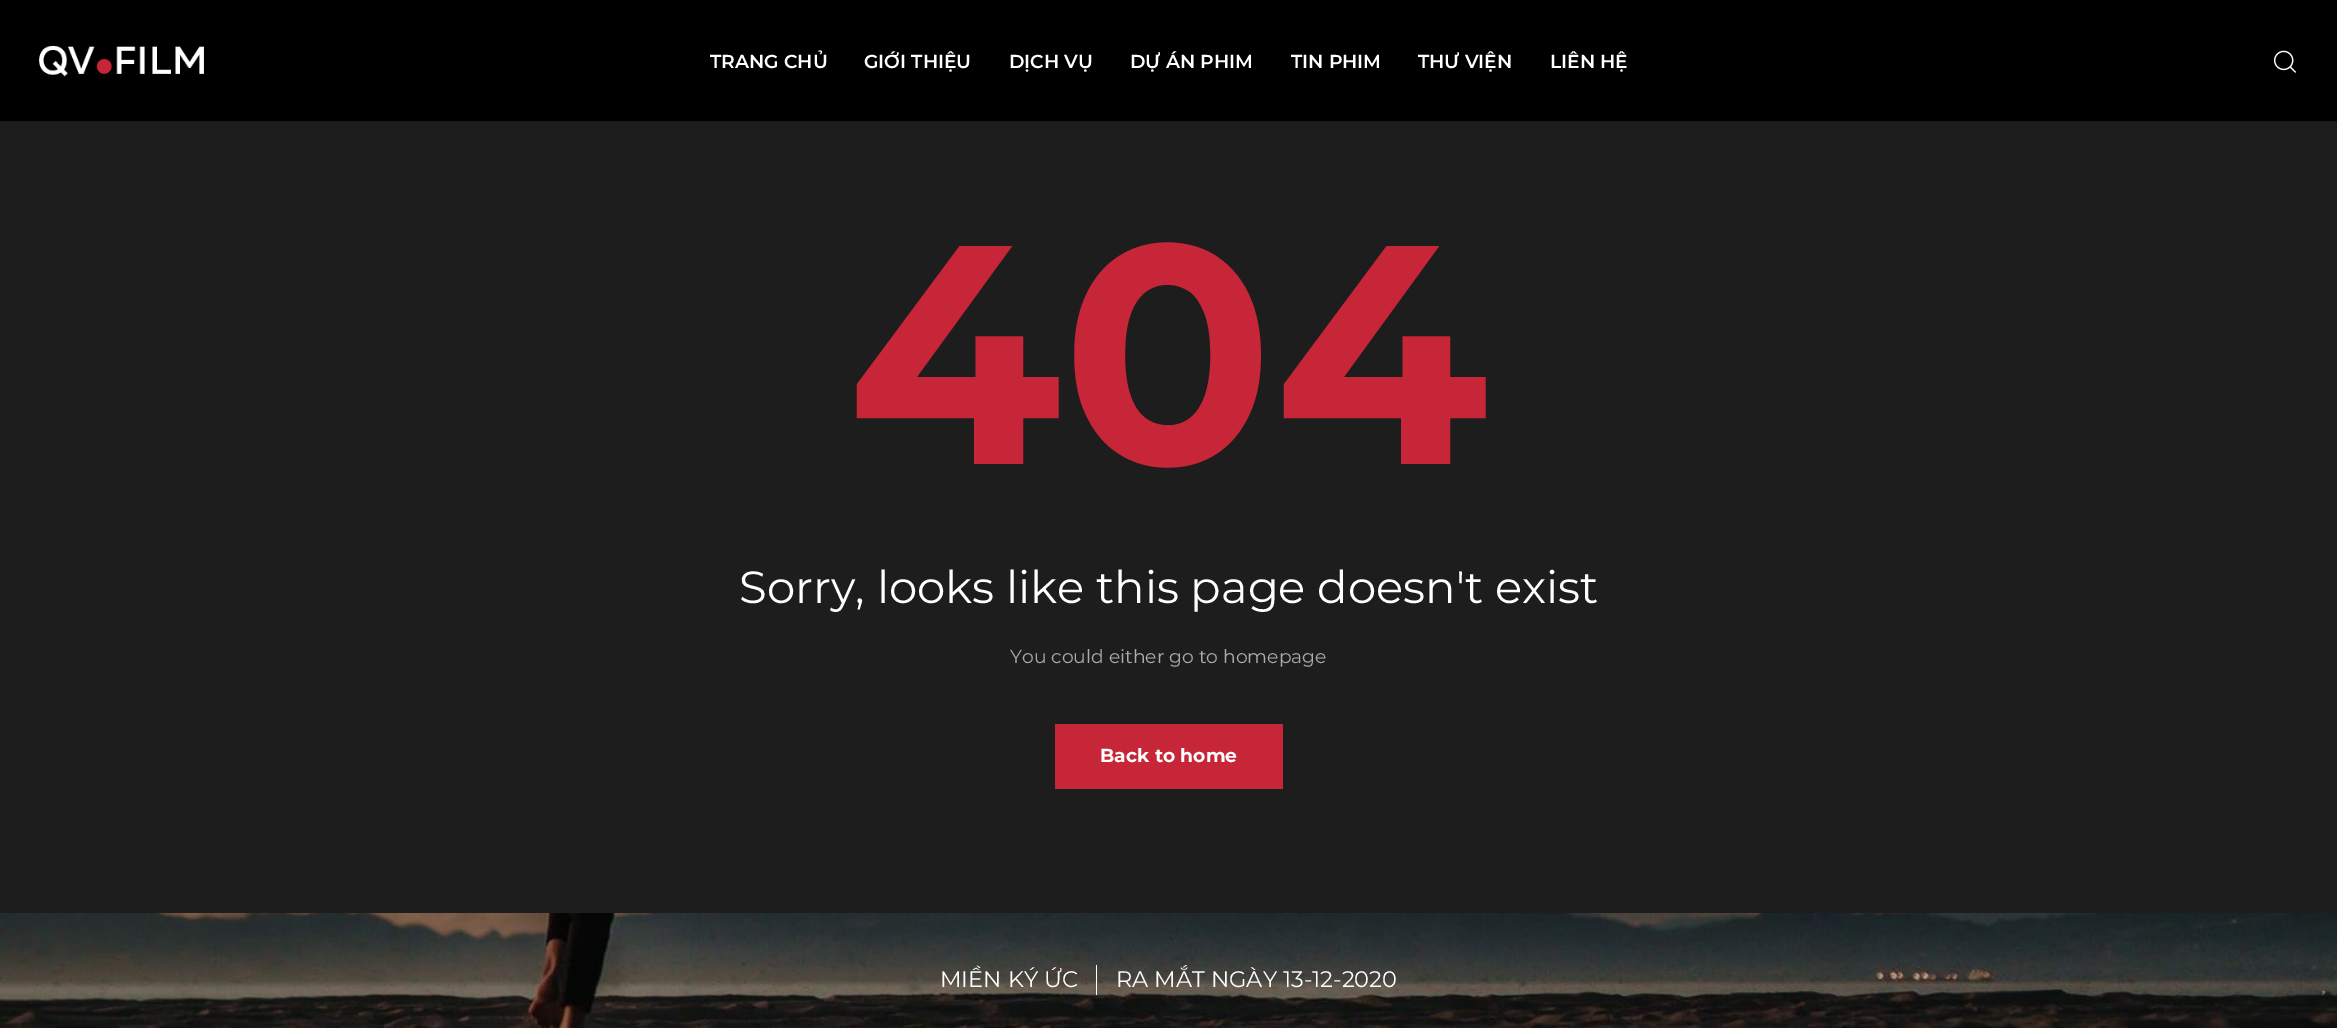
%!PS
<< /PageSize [2337 1028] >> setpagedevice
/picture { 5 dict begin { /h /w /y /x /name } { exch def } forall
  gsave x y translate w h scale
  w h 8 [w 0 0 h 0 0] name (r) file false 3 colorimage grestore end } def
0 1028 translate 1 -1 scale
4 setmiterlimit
0.114 setgray
0 0 2337 1028 rectfill
0 setgray
0 0 2337 121 rectfill
(img1.rgb) 39 45 165 32 picture
/Montserrat-SemiBold [18.75 0 0 -18.75 0 0] selectfont
1 setgray
710 68 moveto (TRANG CHỦ) show
864 68 moveto (GIỚI THIỆU) show
1009 68 moveto (DỊCH VỤ) show
1130 68 moveto (DỰ ÁN PHIM) show
1291 68 moveto (TIN PHIM) show
1418 68 moveto (THƯ VIỆN) show
1550 68 moveto (LIÊN HỆ) show
(img2.rgb) 2274 50 22 23 picture
/Montserrat-Bold [312.5 0 0 -312.5 0 0] selectfont
0.78 0.145 0.22 setrgbcolor
847 464 moveto (404) show
/Montserrat-Regular [45 0 0 -45 0 0] selectfont
1 setgray
739 603 moveto (Sorry, looks like this page doesn't exist) show
/Montserrat-Regular [18.75 0 0 -18.75 0 0] selectfont
0.671 setgray
1010 663 moveto (You could either go to homepage) show
0.78 0.145 0.22 setrgbcolor
1055 724 228 65 rectfill
/Montserrat-Bold [18.75 0 0 -18.75 0 0] selectfont
1 setgray
1100 762 moveto (Back to home) show
(img3.rgb) 0 913 2337 115 picture
/Montserrat-Regular [22.5 0 0 -22.5 0 0] selectfont
940 987 moveto (MIỀN KÝ ỨC) show
1096 965 1 30 rectfill
1116 987 moveto (RA MẮT NGÀY 13-12-2020) show
showpage
